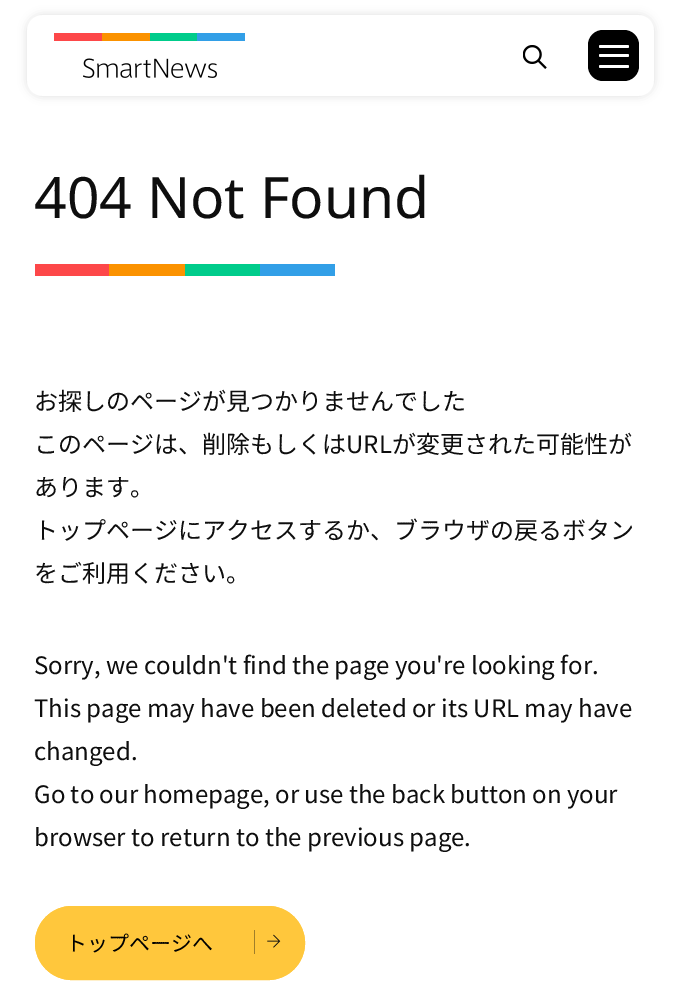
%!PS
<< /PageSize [681 1000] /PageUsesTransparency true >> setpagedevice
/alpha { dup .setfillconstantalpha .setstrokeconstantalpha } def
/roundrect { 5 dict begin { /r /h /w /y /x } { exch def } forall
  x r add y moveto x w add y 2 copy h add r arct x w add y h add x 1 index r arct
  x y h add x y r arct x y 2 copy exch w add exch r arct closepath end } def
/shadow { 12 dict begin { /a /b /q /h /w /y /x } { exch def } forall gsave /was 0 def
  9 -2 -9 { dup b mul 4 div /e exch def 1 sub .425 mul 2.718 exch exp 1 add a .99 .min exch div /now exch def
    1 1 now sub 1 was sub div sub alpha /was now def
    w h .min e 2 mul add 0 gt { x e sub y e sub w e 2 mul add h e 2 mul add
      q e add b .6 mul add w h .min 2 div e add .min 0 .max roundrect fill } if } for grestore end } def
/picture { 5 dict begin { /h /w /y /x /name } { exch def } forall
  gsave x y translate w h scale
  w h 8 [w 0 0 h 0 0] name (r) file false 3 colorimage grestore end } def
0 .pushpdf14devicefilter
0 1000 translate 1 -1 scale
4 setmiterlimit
1 setgray
0 0 681 1000 rectfill
gsave
newpath 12 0 moveto 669 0 lineto 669 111 lineto 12 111 lineto closepath 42 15 moveto 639 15 lineto 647.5 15 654 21.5 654 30 curveto 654 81 lineto 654 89.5 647.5 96 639 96 curveto 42 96 lineto 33.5 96 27 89.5 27 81 curveto 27 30 lineto 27 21.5 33.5 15 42 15 curveto closepath eoclip newpath
0 setgray
27 15 627 81 15 4.5 0.12 shadow
grestore
0.8 alpha
27 15 627 81 15 roundrect fill
1 alpha
(img1.rgb) 54 33 191 45 picture
(img2.rgb) 523 45 24 24 picture
0 setgray
588 30 51 51 15 roundrect fill
1 setgray
599 45 30 3 1.5 roundrect fill
599 54 30 3 1.5 roundrect fill
599 65 30 3 1.5 roundrect fill
0.992 0.278 0.286 setrgbcolor
35 264 74 12 rectfill
0.984 0.573 0 setrgbcolor
109 264 76 12 rectfill
0 0.8 0.545 setrgbcolor
185 264 75 12 rectfill
0.196 0.624 0.906 setrgbcolor
260 264 75 12 rectfill
/NotoSans-Regular [57 0 0 -57 0 0] selectfont
0.055 setgray
34 218 moveto (404 Not Found) show
/NotoSansJP-Regular [24 0 0 -24 0 0] selectfont
34 410 moveto (お探しのページが見つかりませんでした) show
34 453 moveto (このページは、削除もしくはURLが変更された可能性が) show
34 496 moveto (あります。) show
34 539 moveto (トップページにアクセスするか、ブラウザの戻るボタン) show
34 582 moveto (をご利用ください。) show
34 674 moveto (Sorry, we couldn't find the page you're looking for.) show
34 717 moveto (This page may have been deleted or its URL may have) show
34 760 moveto (changed.) show
34 803 moveto (Go to our homepage, or use the back button on your) show
34 846 moveto (browser to return to the previous page.) show
1 0.78 0.235 setrgbcolor
35 906 270 74 37 roundrect fill
(img3.rgb) 254 930 27 24 picture
2 setlinewidth
36 907 268 72 36 roundrect stroke
/NotoSansJP-Regular [21 0 0 -21 0 0] selectfont
0 setgray
66 951 moveto (トップページへ) show
.poppdf14devicefilter showpage
